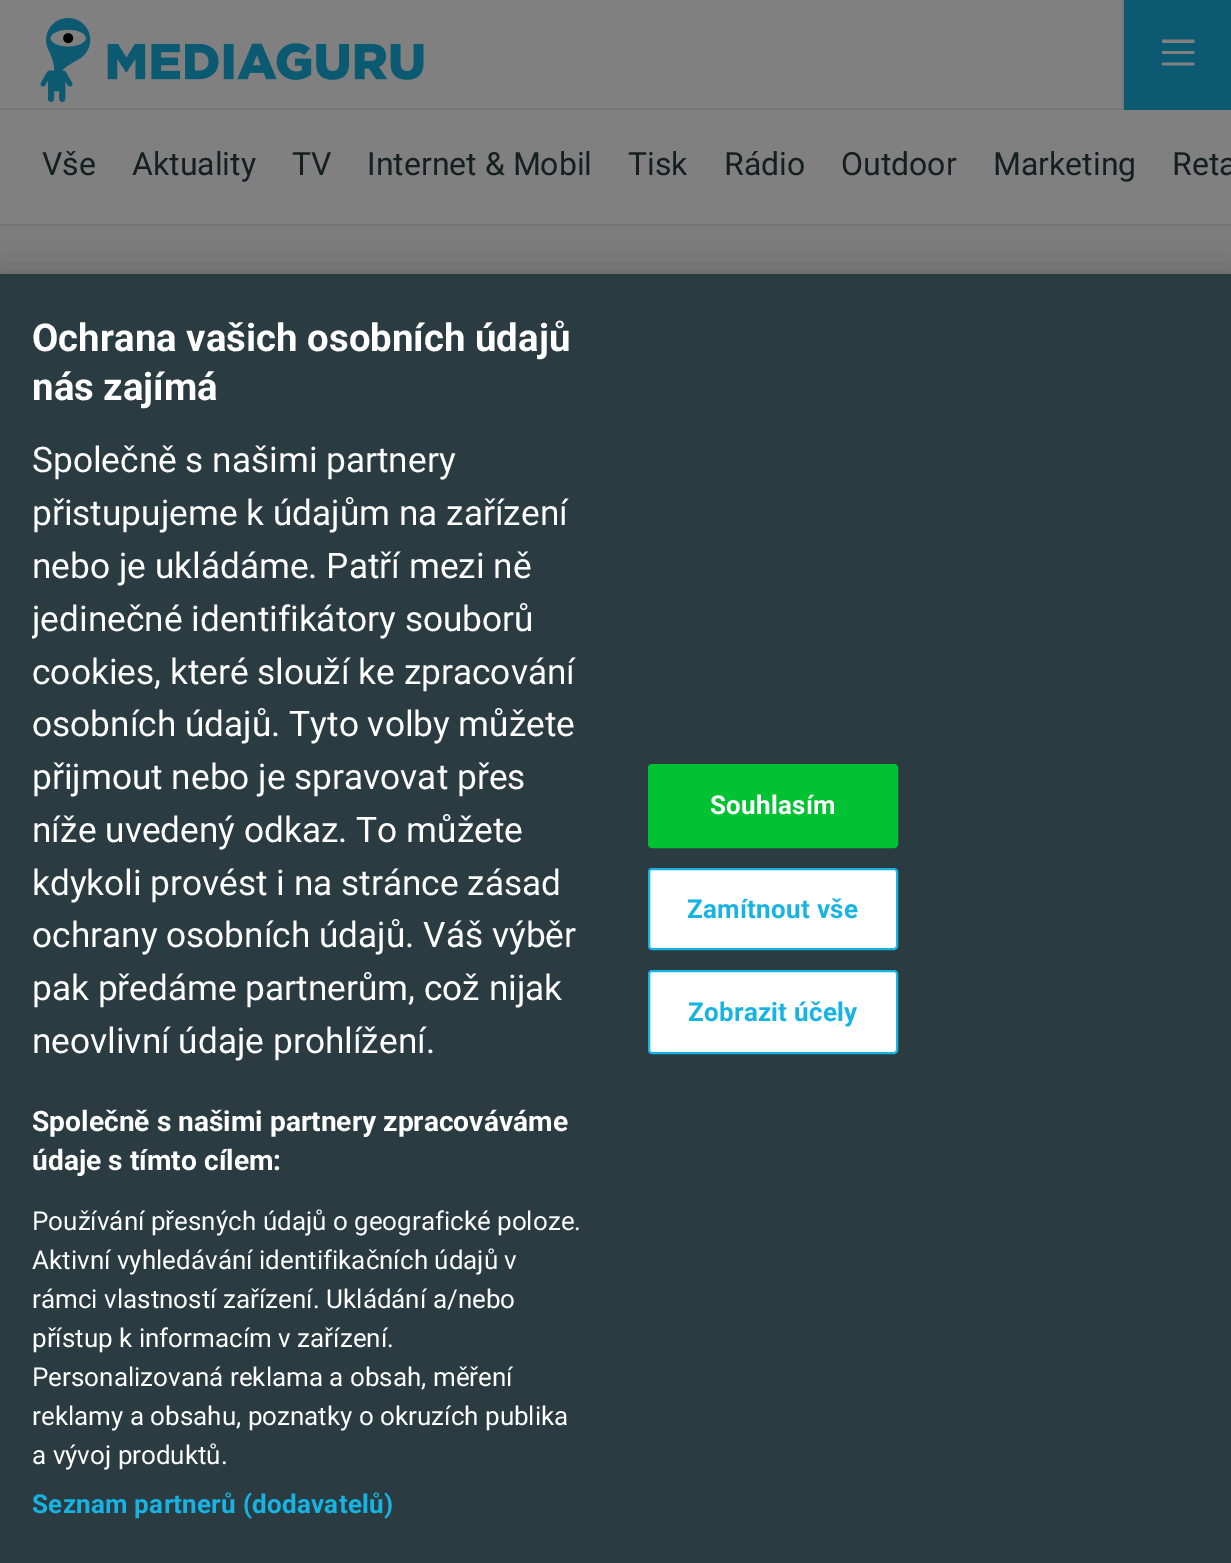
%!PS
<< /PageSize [1231 1563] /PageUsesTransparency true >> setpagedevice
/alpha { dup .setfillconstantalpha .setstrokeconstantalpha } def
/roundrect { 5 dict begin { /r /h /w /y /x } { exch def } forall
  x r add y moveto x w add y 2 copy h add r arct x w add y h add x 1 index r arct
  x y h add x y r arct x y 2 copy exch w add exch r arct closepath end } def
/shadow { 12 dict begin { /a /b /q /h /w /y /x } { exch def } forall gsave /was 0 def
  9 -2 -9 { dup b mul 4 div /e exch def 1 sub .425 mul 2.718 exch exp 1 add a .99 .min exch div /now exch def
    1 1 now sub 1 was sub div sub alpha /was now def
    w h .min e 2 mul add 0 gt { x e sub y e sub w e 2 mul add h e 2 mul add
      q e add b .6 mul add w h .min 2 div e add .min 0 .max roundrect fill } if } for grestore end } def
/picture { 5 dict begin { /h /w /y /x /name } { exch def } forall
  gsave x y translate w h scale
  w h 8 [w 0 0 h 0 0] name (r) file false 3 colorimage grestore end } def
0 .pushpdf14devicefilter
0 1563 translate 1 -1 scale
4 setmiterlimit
0.49 setgray
0 0 1231 1563 rectfill
0.502 setgray
0 0 1231 224 rectfill
0.467 setgray
0 108 1122 2 rectfill
(img1.rgb) 40 18 384 84 picture
0.047 0.353 0.447 setrgbcolor
1124 0 107 110 rectfill
0.467 setgray
1122 0 2 110 rectfill
0.502 setgray
newpath 1162 39.5 moveto 1162 43 lineto 1194.5 43 lineto 1194.5 39.5 lineto closepath 1162 54 moveto 1194.5 54 lineto 1194.5 51 lineto 1162 51 lineto closepath 1162 65.5 moveto 1194.5 65.5 lineto 1194.5 62.5 lineto 1162 62.5 lineto closepath fill
0.467 setgray
0 224 1231 2 rectfill
/Roboto-Regular [32 0 0 -32 0 0] selectfont
0.082 0.118 0.129 setrgbcolor
42 175 moveto (Vše) show
132 175 moveto (Aktuality) show
292 175 moveto (TV) show
367 175 moveto (Internet & Mobil) show
628 175 moveto (Tisk) show
724 175 moveto (Rádio) show
841 175 moveto (Outdoor) show
993 175 moveto (Marketing) show
1172 175 moveto (Reta) show
0 setgray
0 274 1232 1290 0 18 0.2 shadow
0.165 0.231 0.259 setrgbcolor
0 274 1231 1289 rectfill
/Roboto-Bold [38.4 0 0 -38.4 0 0] selectfont
1 setgray
32 351 moveto (Ochrana vašich osobních údajů) show
32 400 moveto (nás zajímá) show
/Roboto-Regular [35.25 0 0 -35.25 0 0] selectfont
32 472 moveto (Společně s našimi partnery) show
32 525 moveto (přistupujeme k údajům na zařízení) show
32 578 moveto (nebo je ukládáme. Patří mezi ně) show
gsave
32 314 552 1230 rectclip
32 631 moveto (jedinečné identifikátory souborů) show
grestore
32 684 moveto (cookies, které slouží ke zpracování) show
32 736 moveto (osobních údajů. Tyto volby můžete) show
32 789 moveto (přijmout nebo je spravovat přes) show
32 842 moveto (níže uvedený odkaz. To můžete) show
32 895 moveto (kdykoli provést i na stránce zásad) show
32 947 moveto (ochrany osobních údajů. Váš výběr) show
32 1000 moveto (pak předáme partnerům, což nijak) show
32 1053 moveto (neovlivní údaje prohlížení.) show
/Roboto-Bold [28.2 0 0 -28.2 0 0] selectfont
32 1131 moveto (Společně s našimi partnery zpracováváme) show
32 1170 moveto (údaje s tímto cílem:) show
/Roboto-Regular [26 0 0 -26 0 0] selectfont
32 1230 moveto (Používání přesných údajů o geografické poloze.) show
32 1269 moveto (Aktivní vyhledávání identifikačních údajů v) show
32 1308 moveto (rámci vlastností zařízení. Ukládání a/nebo) show
32 1347 moveto (přístup k informacím v zařízení.) show
32 1386 moveto (Personalizovaná reklama a obsah, měření) show
32 1425 moveto (reklamy a obsahu, poznatky o okruzích publika) show
32 1464 moveto (a vývoj produktů.) show
/Roboto-Bold [26 0 0 -26 0 0] selectfont
0.09 0.702 0.89 setrgbcolor
32 1513 moveto 0.25 0 (Seznam partnerů \(dodavatelů\)) ashow
0 0.761 0.196 setrgbcolor
649 765 248 82 3 roundrect gsave fill grestore
2 setlinewidth
stroke
1 setgray
710 814 moveto 0.25 0 (Souhlasím) ashow
649 869 248 80 3 roundrect gsave fill grestore
0.09 0.702 0.89 setrgbcolor
stroke
687 918 moveto 0.25 0 (Zamítnout vše) ashow
1 setgray
649 971 248 82 3 roundrect gsave fill grestore
0.09 0.702 0.89 setrgbcolor
stroke
688 1021 moveto 0.25 0 (Zobrazit účely) ashow
.poppdf14devicefilter showpage
